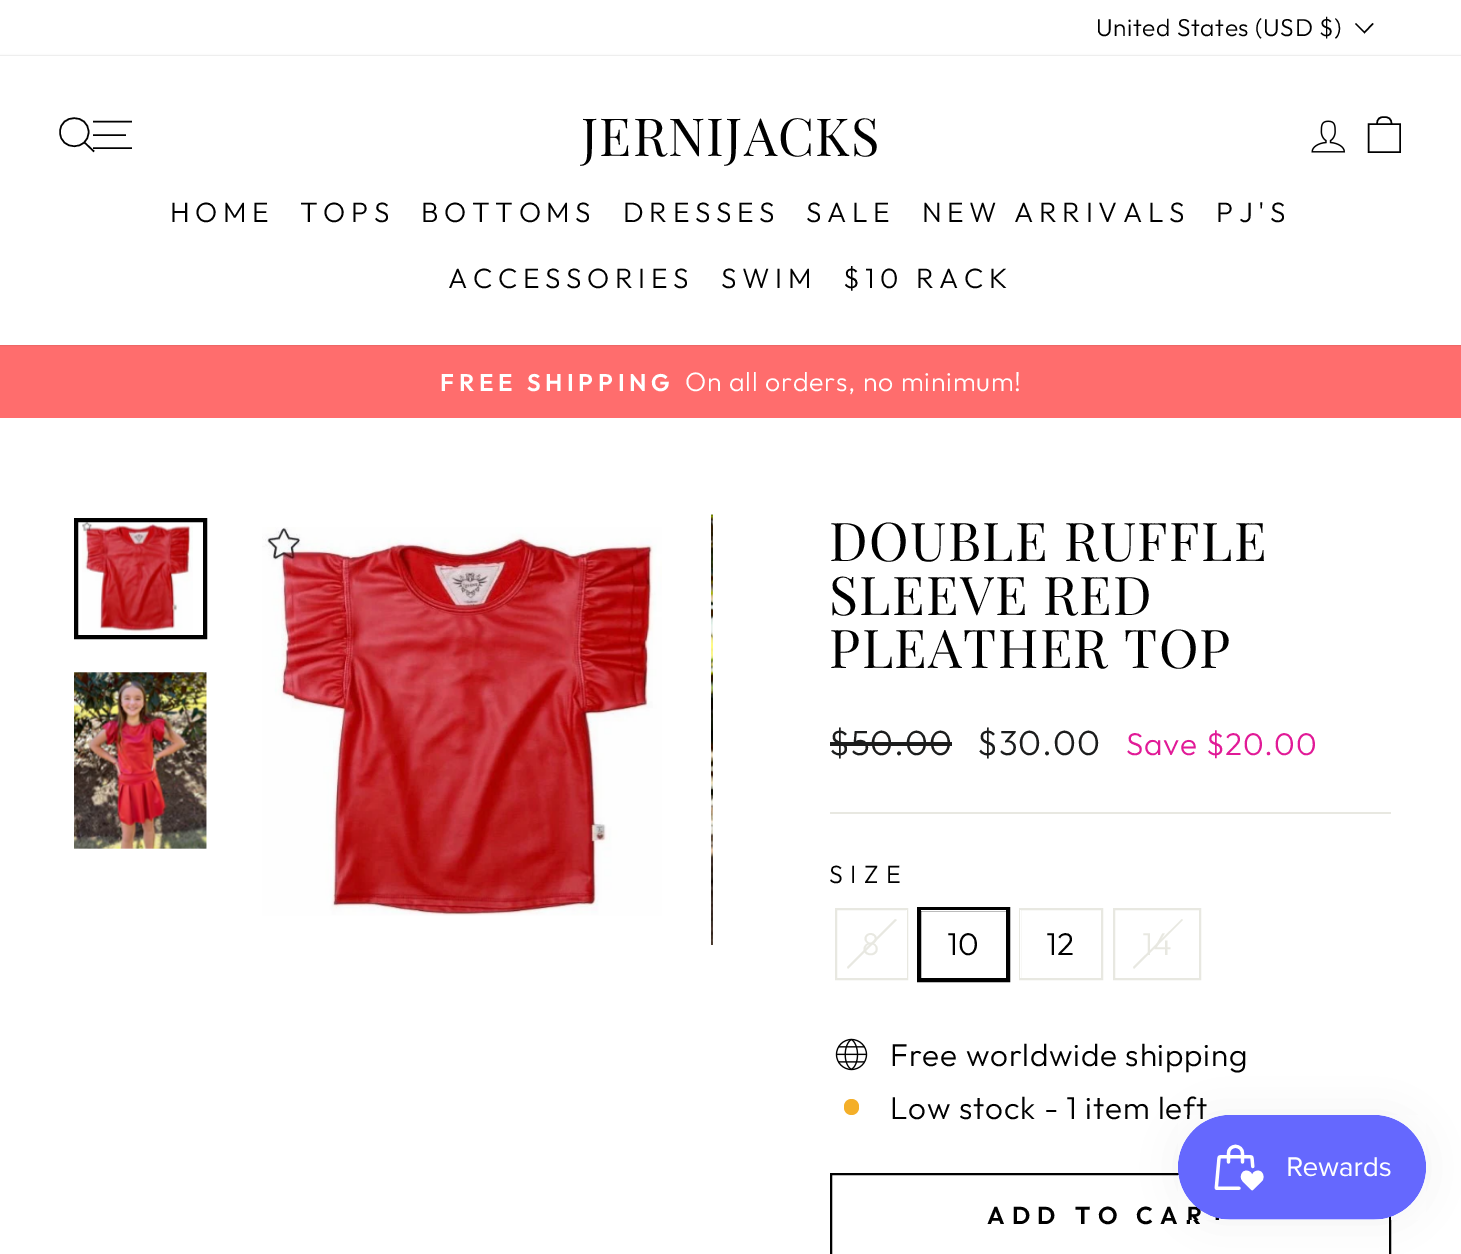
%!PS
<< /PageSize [1461 1254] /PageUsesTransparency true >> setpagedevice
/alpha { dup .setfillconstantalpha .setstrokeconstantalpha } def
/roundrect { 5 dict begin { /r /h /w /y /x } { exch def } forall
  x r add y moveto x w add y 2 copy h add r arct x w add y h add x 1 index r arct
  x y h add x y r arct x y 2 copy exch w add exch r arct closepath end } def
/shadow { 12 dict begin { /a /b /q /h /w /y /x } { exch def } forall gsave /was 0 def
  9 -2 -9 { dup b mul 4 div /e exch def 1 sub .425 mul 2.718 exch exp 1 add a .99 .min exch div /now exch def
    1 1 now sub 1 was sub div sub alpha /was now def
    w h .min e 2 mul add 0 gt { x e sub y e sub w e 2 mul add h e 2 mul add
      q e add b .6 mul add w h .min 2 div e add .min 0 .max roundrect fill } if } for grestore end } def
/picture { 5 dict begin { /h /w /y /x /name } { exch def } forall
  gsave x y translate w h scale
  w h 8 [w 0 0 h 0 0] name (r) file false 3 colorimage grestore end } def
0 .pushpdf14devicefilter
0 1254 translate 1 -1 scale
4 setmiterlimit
1 setgray
0 0 1461 1254 rectfill
/Outfit-Light [24.5 0 0 -24.5 0 0] selectfont
0 setgray
1096 36 moveto 0.6 0 (United States \(USD $\)) ashow
1.4 setlinewidth
newpath 1355.5 23.5 moveto 1364.5 32.5 lineto 1373 23.5 lineto stroke
1 0.427 0.427 setrgbcolor
0 345 1461 73 rectfill
0 setgray
0 56 1461 289 0 1 0.2 shadow
1 setgray
0 56 1461 289 rectfill
0 setgray
1.5 setlinewidth
newpath 88.5 132 moveto 88.5 151 60 151 60 132 curveto 60 113.5 88.5 113.5 88.5 132 curveto closepath 94 151.5 moveto 84.5 142.5 lineto stroke
newpath 93 121.5 moveto 132 121.5 lineto 93 135 moveto 126 135 lineto 93 148 moveto 132 148 lineto stroke
/PlayfairDisplay-Regular [52.5 0 0 -52.5 0 0] selectfont
581 156 moveto 1.25 0 (JERNIJACKS) ashow
(img1.rgb) 1311 120 35 33 picture
newpath 1368.5 124 moveto 1400 124 lineto 1400 152 lineto 1368.5 152 lineto closepath 1377 124 moveto 1377 118.5 1380 117 1384 117 curveto 1388.5 117 1391.5 118.5 1391.5 124 curveto stroke
/Outfit-Light [28 0 0 -28 0 0] selectfont
170 222 moveto 5.6 0 (HOME) ashow
300 222 moveto 5.6 0 (TOPS) ashow
421 222 moveto 5.6 0 (BOTTOMS) ashow
623 222 moveto 5.6 0 (DRESSES) ashow
806 222 moveto 5.6 0 (SALE) ashow
922 222 moveto 5.6 0 (NEW ARRIVALS) ashow
1216 222 moveto 5.6 0 (PJ'S) ashow
448 288 moveto 5.6 0 (ACCESSORIES) ashow
721 288 moveto 5.6 0 (SWIM) ashow
843 288 moveto 5.6 0 ($10 RACK) ashow
/Outfit-SemiBold [24 0 0 -24 0 0] selectfont
1 setgray
440 391 moveto 4.75 0 (FREE SHIPPING) ashow
/Outfit-Light [26.75 0 0 -26.75 0 0] selectfont
685 391 moveto 0.8 0 (On all orders, no minimum!) ashow
(img2.rgb) 82 522 111 112 picture
0 setgray
4 setlinewidth
76 520 129 117 rectstroke
(img3.rgb) 74 672 133 177 picture
(img4.rgb) 262 527 400 389 picture
(img5.rgb) 711 514 2 431 picture
/PlayfairDisplay-Regular [53.5 0 0 -53.5 0 0] selectfont
829 561 moveto 1.3 0 (DOUBLE RUFFLE) ashow
829 615 moveto 1.3 0 (SLEEVE RED) ashow
829 668 moveto 1.3 0 (PLEATHER TOP) ashow
/Outfit-Light [35 0 0 -35 0 0] selectfont
0.11 0.114 0.114 setrgbcolor
829 755 moveto 0.8 0 ($50.00) ashow
830 742 122 4 rectfill
977 755 moveto 0.8 0 ($30.00) ashow
/Outfit-Light [31.5 0 0 -31.5 0 0] selectfont
0.882 0.102 0.592 setrgbcolor
1126 755 moveto 0.8 0 (Save $20.00) ashow
0.91 0.91 0.882 setrgbcolor
830 812 561 2 rectfill
/Outfit-Light [25 0 0 -25 0 0] selectfont
0 setgray
829 883 moveto 7.5 0 (SIZE) ashow
0.91 0.91 0.882 setrgbcolor
2 setlinewidth
836 909 71 70 rectstroke
1 setgray
906 910 1 68 rectfill
0.91 0.91 0.882 setrgbcolor
newpath 895 919 moveto 897 920 lineto 848 969 lineto 847 967 lineto closepath fill
/Outfit-Light [31.5 0 0 -31.5 0 0] selectfont
862 955 moveto 0.8 0 (8) ashow
0 setgray
4 setlinewidth
919 909 89 71 rectstroke
1 setgray
921 910 85 1 rectfill
0 setgray
947 955 moveto 0.8 0 (10) ashow
0.91 0.91 0.882 setrgbcolor
2 setlinewidth
1020 909 82 70 rectstroke
1 setgray
1020 910 1 68 rectfill
0 setgray
1046 955 moveto 0.8 0 (12) ashow
0.91 0.91 0.882 setrgbcolor
1114 909 86 70 rectstroke
newpath 1182 919 moveto 1183 920 lineto 1134 969 lineto 1133 967 lineto closepath fill
1142 955 moveto 0.8 0 (14) ashow
(img6.rgb) 835 1038 33 33 picture
0 setgray
890 1066 moveto 0.8 0 (Free worldwide shipping) ashow
0.957 0.686 0.161 setrgbcolor
844 1099 15 16 7.5 roundrect fill
0 setgray
890 1119 moveto 0.8 0 (Low stock - 1 item left) ashow
831 1174 559 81 rectstroke
/Outfit-SemiBold [24.5 0 0 -24.5 0 0] selectfont
987 1224 moveto 7.25 0 (ADD TO CAR) ashow
1178 1115 248 105 52.5 22 0.05 shadow
(img7.rgb) 1178 1115 248 105 picture
.poppdf14devicefilter showpage
